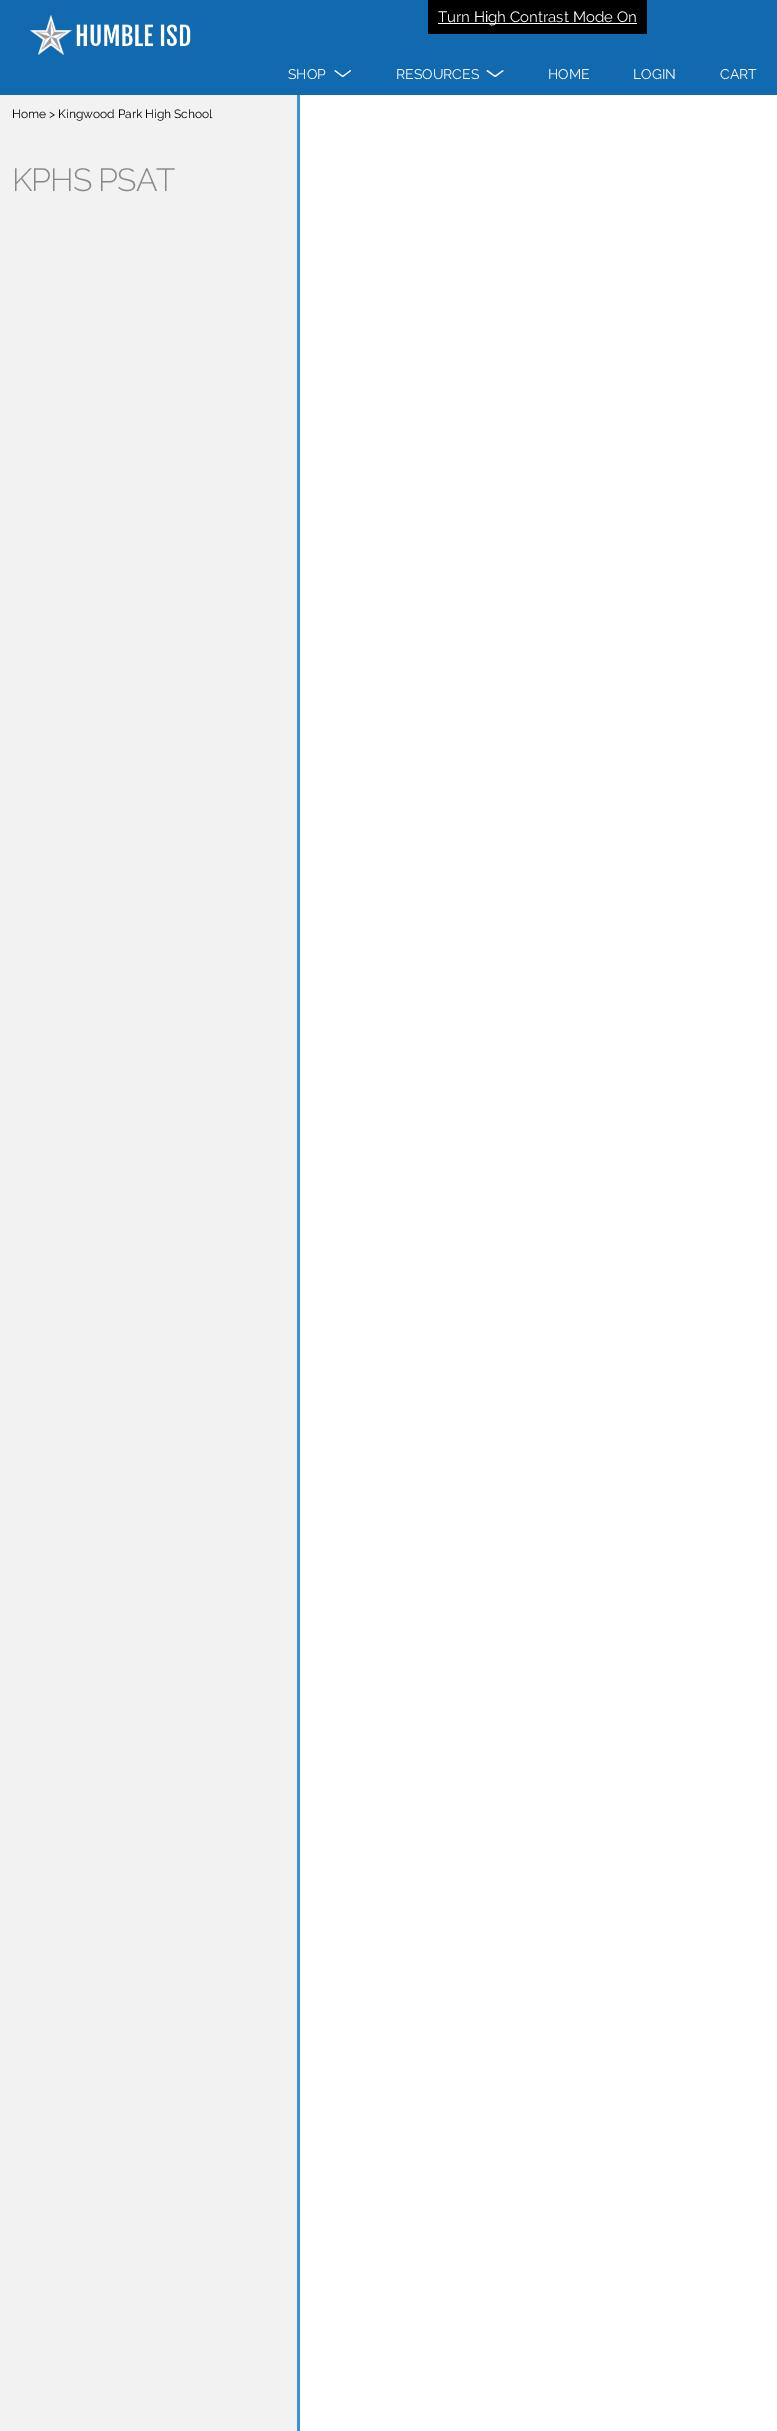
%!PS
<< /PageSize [777 2431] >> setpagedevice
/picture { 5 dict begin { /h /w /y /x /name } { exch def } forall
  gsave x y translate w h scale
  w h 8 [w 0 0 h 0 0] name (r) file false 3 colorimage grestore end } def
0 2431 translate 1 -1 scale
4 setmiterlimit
1 setgray
0 0 777 2431 rectfill
0.067 0.416 0.69 setrgbcolor
0 0 777 95 rectfill
(img1.rgb) 30 15 161 40 picture
0 setgray
428 0 219 34 rectfill
1 setgray
438 23 199 1 rectfill
/Raleway-Regular [15 0 0 -15 0 0] selectfont
438 22 moveto (Turn High Contrast Mode On) show
/Raleway-Regular [14 0 0 -14 0 0] selectfont
288 79 moveto (SHOP) show
newpath 342.5 76 moveto 350.5 70 lineto 351 71 lineto 343 77 lineto closepath fill
newpath 335 70 moveto 343 76 lineto 342.5 77 lineto 334.5 71 lineto closepath fill
396 79 moveto (RESOURCES) show
newpath 494.5 76 moveto 503 70 lineto 503.5 71 lineto 495.5 77 lineto closepath fill
newpath 487.5 70 moveto 495.5 76 lineto 495 77 lineto 486.5 71 lineto closepath fill
548 79 moveto (HOME) show
633 79 moveto (LOGIN) show
720 79 moveto (CART) show
0.949 setgray
0 95 297 2336 rectfill
/Raleway-Regular [12 0 0 -12 0 0] selectfont
0 setgray
12 118 moveto (Home > Kingwood Park High School) show
/Raleway-Light [32 0 0 -32 0 0] selectfont
0.533 setgray
12 191 moveto -1 0 (KPHS PSAT) ashow
0.231 0.576 0.843 setrgbcolor
297 95 3 2336 rectfill
showpage
